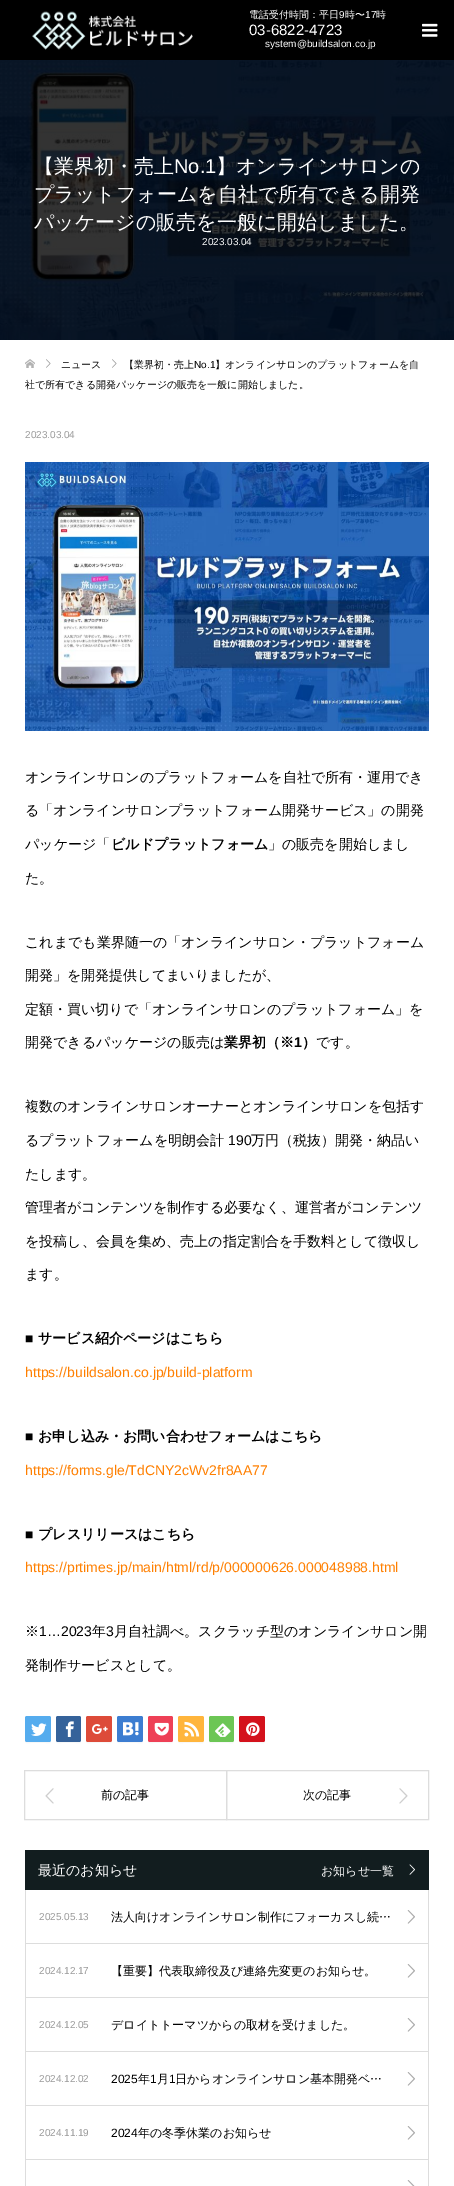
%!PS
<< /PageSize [454 2186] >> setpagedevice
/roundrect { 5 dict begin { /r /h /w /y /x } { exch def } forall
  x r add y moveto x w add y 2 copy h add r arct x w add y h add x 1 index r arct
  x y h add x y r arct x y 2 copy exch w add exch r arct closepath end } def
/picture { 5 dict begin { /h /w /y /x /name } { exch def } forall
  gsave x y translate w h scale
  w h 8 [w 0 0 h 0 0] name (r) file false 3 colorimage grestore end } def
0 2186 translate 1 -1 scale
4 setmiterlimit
1 setgray
0 0 454 2186 rectfill
0 setgray
0 0 454 60 rectfill
(img1.rgb) 32 11 161 39 picture
/WenQuanYiZenHei-Medium [10 0 0 -10 0 0] selectfont
1 setgray
249 18 moveto (電話受付時間：平日) show
/LiberationSans-Regular [10 0 0 -10 0 0] selectfont
339 18 moveto (9) show
/WenQuanYiZenHei-Medium [10 0 0 -10 0 0] selectfont
345 18 moveto (時〜) show
/LiberationSans-Regular [10 0 0 -10 0 0] selectfont
365 18 moveto (17) show
/WenQuanYiZenHei-Medium [10 0 0 -10 0 0] selectfont
376 18 moveto (時) show
/LiberationSans-Regular [15 0 0 -15 0 0] selectfont
249 35 moveto (03-6822-4723) show
/LiberationSans-Regular [10 0 0 -10 0 0] selectfont
265 47 moveto (system@buildsalon.co.jp) show
(img2.rgb) 422 23 16 14 picture
(img3.rgb) 0 60 454 280 picture
/WenQuanYiZenHei-Medium [20 0 0 -20 0 0] selectfont
34 173 moveto (【業界初・売上) show
/LiberationSans-Regular [20 0 0 -20 0 0] selectfont
174 173 moveto (No.1) show
/WenQuanYiZenHei-Medium [20 0 0 -20 0 0] selectfont
216 173 moveto (】オンラインサロンの) show
34 201 moveto (プラットフォームを自社で所有できる開発) show
34 229 moveto (パッケージの販売を一般に開始しました。) show
/LiberationSans-Regular [10 0 0 -10 0 0] selectfont
202 245 moveto (2023.03.04) show
(img4.rgb) 25 359 10 9 picture
(img5.rgb) 46 359 5 9 picture
/WenQuanYiZenHei-Medium [10 0 0 -10 0 0] selectfont
0 setgray
61 368 moveto (ニュース) show
(img5.rgb) 112 359 5 9 picture
124 368 moveto (【業界初・売上) show
/LiberationSans-Regular [10 0 0 -10 0 0] selectfont
194 368 moveto (No.1) show
/WenQuanYiZenHei-Medium [10 0 0 -10 0 0] selectfont
215 368 moveto (】オンラインサロンのプラットフォームを自) show
25 388 moveto (社で所有できる開発パッケージの販売を一般に開始しました。) show
/LiberationSans-Regular [10 0 0 -10 0 0] selectfont
0.6 setgray
25 438 moveto (2023.03.04) show
(img6.rgb) 25 462 404 269 picture
/WenQuanYiZenHei-Medium [14 0 0 -14 0 0] selectfont
0 setgray
25 782 moveto (オンラインサロンのプラットフォームを自社で所有・運用でき) show
25 815 moveto (る「オンラインサロンプラットフォーム開発サービス」の開発) show
25 849 moveto (パッケージ「) show
/WenQuanYiZenHei-Bold [14 0 0 -14 0 0] selectfont
111 849 moveto (ビルドプラットフォーム) show
/WenQuanYiZenHei-Medium [14 0 0 -14 0 0] selectfont
268 849 moveto (」の販売を開始しまし) show
25 883 moveto (た。) show
25 947 moveto (これまでも業界随一の「オンラインサロン・プラットフォーム) show
25 980 moveto (開発」を開発提供してまいりましたが、) show
25 1014 moveto (定額・買い切りで「オンラインサロンのプラットフォーム」を) show
25 1047 moveto (開発できるパッケージの販売は) show
/WenQuanYiZenHei-Bold [14 0 0 -14 0 0] selectfont
224 1047 moveto (業界初（※) show
/LiberationSans-Bold [14 0 0 -14 0 0] selectfont
294 1047 moveto (1) show
/WenQuanYiZenHei-Bold [14 0 0 -14 0 0] selectfont
302 1047 moveto (）) show
/WenQuanYiZenHei-Medium [14 0 0 -14 0 0] selectfont
316 1047 moveto (です。) show
25 1111 moveto (複数のオンラインサロンオーナーとオンラインサロンを包括す) show
25 1145 moveto (るプラットフォームを明朗会計) show
/LiberationSans-Regular [14 0 0 -14 0 0] selectfont
228 1145 moveto (190) show
/WenQuanYiZenHei-Medium [14 0 0 -14 0 0] selectfont
251 1145 moveto (万円（税抜）開発・納品い) show
25 1179 moveto (たします。) show
25 1212 moveto (管理者がコンテンツを制作する必要なく、運営者がコンテンツ) show
25 1246 moveto (を投稿し、会員を集め、売上の指定割合を手数料として徴収し) show
25 1279 moveto (ます。) show
/LiberationSans-Bold [14 0 0 -14 0 0] selectfont
25 1343 moveto (■) show
/WenQuanYiZenHei-Bold [14 0 0 -14 0 0] selectfont
38 1343 moveto (サービス紹介ページはこちら) show
/LiberationSans-Regular [14 0 0 -14 0 0] selectfont
1 0.498 0 setrgbcolor
25 1377 moveto (https://buildsalon.co.jp/build-platform) show
/LiberationSans-Bold [14 0 0 -14 0 0] selectfont
0 setgray
25 1441 moveto (■) show
/WenQuanYiZenHei-Bold [14 0 0 -14 0 0] selectfont
38 1441 moveto (お申し込み・お問い合わせフォームはこちら) show
/LiberationSans-Regular [14 0 0 -14 0 0] selectfont
1 0.498 0 setrgbcolor
25 1475 moveto (https://forms.gle/TdCNY2cWv2fr8AA77) show
/LiberationSans-Bold [14 0 0 -14 0 0] selectfont
0 setgray
25 1539 moveto (■) show
/WenQuanYiZenHei-Bold [14 0 0 -14 0 0] selectfont
38 1539 moveto (プレスリリースはこちら) show
/LiberationSans-Regular [14 0 0 -14 0 0] selectfont
1 0.498 0 setrgbcolor
25 1572 moveto (https://prtimes.jp/main/html/rd/p/000000626.000048988.html) show
/WenQuanYiZenHei-Medium [14 0 0 -14 0 0] selectfont
0 setgray
25 1636 moveto (※) show
/LiberationSans-Regular [14 0 0 -14 0 0] selectfont
39 1636 moveto (1…2023) show
/WenQuanYiZenHei-Medium [14 0 0 -14 0 0] selectfont
92 1636 moveto (年) show
/LiberationSans-Regular [14 0 0 -14 0 0] selectfont
106 1636 moveto (3) show
/WenQuanYiZenHei-Medium [14 0 0 -14 0 0] selectfont
114 1636 moveto (月自社調べ。スクラッチ型のオンラインサロン開) show
25 1670 moveto (発制作サービスとして。) show
0.969 setgray
newpath 25 1740 moveto 25 1744 27 1743 30.5 1743 curveto 45.5 1743 lineto 49 1743 51 1744 51 1740 curveto 51 1741 50 1742 49 1742 curveto 27 1742 lineto 26 1742 25 1741 25 1740 curveto closepath fill
0.333 0.675 0.933 setrgbcolor
25 1716 26 26 2 roundrect fill
(img7.rgb) 31 1723 16 13 picture
0.969 setgray
newpath 56 1740 moveto 56 1744 58 1743 61.5 1743 curveto 75.5 1743 lineto 79 1743 81 1744 81 1740 curveto 81 1741 80 1742 79 1742 curveto 58 1742 lineto 57 1742 56 1741 56 1740 curveto closepath fill
0.208 0.384 0.604 setrgbcolor
56 1716 25 26 2 roundrect fill
(img8.rgb) 65 1721 9 16 picture
0.969 setgray
newpath 86 1740 moveto 86 1744 88 1743 91.5 1743 curveto 106.5 1743 lineto 110 1743 112 1744 112 1740 curveto 112 1741 111 1742 110 1742 curveto 88 1742 lineto 87 1742 86 1741 86 1740 curveto closepath fill
0.867 0.294 0.224 setrgbcolor
86 1716 26 26 2 roundrect fill
(img9.rgb) 92 1724 16 10 picture
0.969 setgray
newpath 117 1740 moveto 117 1744 119 1743 122.5 1743 curveto 137.5 1743 lineto 141 1743 143 1744 143 1740 curveto 143 1741 142 1742 141 1742 curveto 119 1742 lineto 118 1742 117 1741 117 1740 curveto closepath fill
0.235 0.49 0.82 setrgbcolor
117 1716 26 26 2 roundrect fill
(img10.rgb) 123 1722 16 14 picture
0.969 setgray
newpath 148 1740 moveto 148 1744 150 1743 153.5 1743 curveto 167.5 1743 lineto 171 1743 173 1744 173 1740 curveto 173 1741 172 1742 171 1742 curveto 150 1742 lineto 149 1742 148 1741 148 1740 curveto closepath fill
0.933 0.251 0.337 setrgbcolor
148 1716 25 26 2 roundrect fill
(img11.rgb) 154 1722 15 14 picture
0.969 setgray
newpath 178 1740 moveto 178 1744 180 1743 183.5 1743 curveto 198.5 1743 lineto 202 1743 204 1744 204 1740 curveto 204 1741 203 1742 202 1742 curveto 180 1742 lineto 179 1742 178 1741 178 1740 curveto closepath fill
1 0.71 0.235 setrgbcolor
178 1716 26 26 2 roundrect fill
(img12.rgb) 184 1721 16 16 picture
0.969 setgray
newpath 209 1740 moveto 209 1744 211 1743 214.5 1743 curveto 228.5 1743 lineto 232 1743 234 1744 234 1740 curveto 234 1741 233 1742 232 1742 curveto 211 1742 lineto 210 1742 209 1741 209 1740 curveto closepath fill
0.424 0.776 0.333 setrgbcolor
209 1716 25 26 2 roundrect fill
(img13.rgb) 215 1723 16 14 picture
0.969 setgray
newpath 239 1740 moveto 239 1744 241 1743 244.5 1743 curveto 259.5 1743 lineto 263 1743 265 1744 265 1740 curveto 265 1741 264 1742 263 1742 curveto 241 1742 lineto 240 1742 239 1741 239 1740 curveto closepath fill
0.831 0.071 0.11 setrgbcolor
239 1716 26 26 2 roundrect fill
(img14.rgb) 246 1722 14 14 picture
0.867 setgray
24.5 1770.5 202 49 rectstroke
(img15.rgb) 45 1788 9 16 picture
/WenQuanYiZenHei-Medium [12 0 0 -12 0 0] selectfont
0 setgray
101 1799 moveto (前の記事) show
0.867 setgray
226.5 1770.5 202 49 rectstroke
0 setgray
303 1799 moveto (次の記事) show
(img16.rgb) 399 1788 9 16 picture
0.071 0.114 0.122 setrgbcolor
25 1850 404 40 rectfill
/WenQuanYiZenHei-Medium [14 0 0 -14 0 0] selectfont
1 setgray
38 1875 moveto (最近のお知らせ) show
/WenQuanYiZenHei-Medium [12 0 0 -12 0 0] selectfont
321 1875 moveto (お知らせ一覧) show
(img17.rgb) 409 1864 6 11 picture
0.867 setgray
428 1890 1 296 rectfill
25 1943 404 1 rectfill
25 1890 1 54 rectfill
/LiberationSans-Regular [10 0 0 -10 0 0] selectfont
0.6 setgray
39 1920 moveto (2025.05.13) show
/WenQuanYiZenHei-Medium [12 0 0 -12 0 0] selectfont
0 setgray
111 1921 moveto (法人向けオンラインサロン制作にフォーカスし続…) show
(img18.rgb) 407 1910 8 14 picture
0.867 setgray
25 1997 404 1 rectfill
25 1944 1 54 rectfill
/LiberationSans-Regular [10 0 0 -10 0 0] selectfont
0.6 setgray
39 1974 moveto (2024.12.17) show
/WenQuanYiZenHei-Medium [12 0 0 -12 0 0] selectfont
0 setgray
111 1975 moveto (【重要】代表取締役及び連絡先変更のお知らせ。) show
(img18.rgb) 407 1964 8 14 picture
0.867 setgray
25 2051 404 1 rectfill
25 1998 1 54 rectfill
/LiberationSans-Regular [10 0 0 -10 0 0] selectfont
0.6 setgray
39 2028 moveto (2024.12.05) show
/WenQuanYiZenHei-Medium [12 0 0 -12 0 0] selectfont
0 setgray
111 2029 moveto (デロイトトーマツからの取材を受けました。) show
(img18.rgb) 407 2018 8 14 picture
0.867 setgray
25 2105 404 1 rectfill
25 2052 1 54 rectfill
/LiberationSans-Regular [10 0 0 -10 0 0] selectfont
0.6 setgray
39 2082 moveto (2024.12.02) show
/LiberationSans-Regular [12 0 0 -12 0 0] selectfont
0 setgray
111 2083 moveto (2025) show
/WenQuanYiZenHei-Medium [12 0 0 -12 0 0] selectfont
138 2083 moveto (年) show
/LiberationSans-Regular [12 0 0 -12 0 0] selectfont
150 2083 moveto (1) show
/WenQuanYiZenHei-Medium [12 0 0 -12 0 0] selectfont
157 2083 moveto (月) show
/LiberationSans-Regular [12 0 0 -12 0 0] selectfont
169 2083 moveto (1) show
/WenQuanYiZenHei-Medium [12 0 0 -12 0 0] selectfont
175 2083 moveto (日からオンラインサロン基本開発ベ…) show
(img18.rgb) 407 2072 8 14 picture
0.867 setgray
25 2159 404 1 rectfill
25 2106 1 80 rectfill
/LiberationSans-Regular [10 0 0 -10 0 0] selectfont
0.6 setgray
39 2136 moveto (2024.11.19) show
/LiberationSans-Regular [12 0 0 -12 0 0] selectfont
0 setgray
111 2137 moveto (2024) show
/WenQuanYiZenHei-Medium [12 0 0 -12 0 0] selectfont
138 2137 moveto (年の冬季休業のお知らせ) show
(img18.rgb) 407 2126 8 14 picture
(img19.rgb) 407 2180 8 6 picture
showpage
